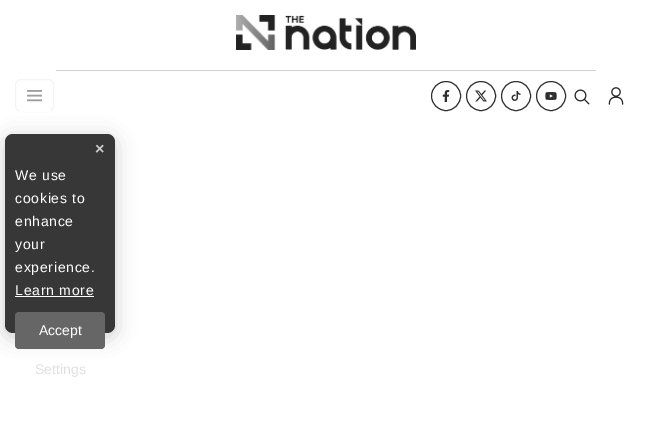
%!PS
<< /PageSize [651 443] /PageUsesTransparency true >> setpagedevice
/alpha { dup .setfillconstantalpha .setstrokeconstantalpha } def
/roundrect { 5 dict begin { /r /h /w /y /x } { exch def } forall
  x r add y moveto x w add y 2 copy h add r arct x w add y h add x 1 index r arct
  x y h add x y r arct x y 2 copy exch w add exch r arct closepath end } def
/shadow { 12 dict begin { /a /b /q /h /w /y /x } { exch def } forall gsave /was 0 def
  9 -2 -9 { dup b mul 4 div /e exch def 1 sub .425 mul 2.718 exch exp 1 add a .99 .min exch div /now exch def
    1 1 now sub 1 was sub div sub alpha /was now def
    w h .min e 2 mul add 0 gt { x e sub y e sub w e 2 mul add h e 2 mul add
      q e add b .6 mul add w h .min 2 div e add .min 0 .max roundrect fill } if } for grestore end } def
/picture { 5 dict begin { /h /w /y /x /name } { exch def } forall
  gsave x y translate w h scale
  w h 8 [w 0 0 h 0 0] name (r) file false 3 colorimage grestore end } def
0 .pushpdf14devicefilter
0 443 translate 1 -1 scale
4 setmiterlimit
1 setgray
0 0 651 443 rectfill
0.827 setgray
56 70 540 1 rectfill
(img1.rgb) 236 15 180 35 picture
0.957 setgray
15.5 79.5 38 32 5.5 roundrect stroke
(img2.rgb) 27 90 15 12 picture
0.184 setgray
newpath 446 96 14.5 0 360 arc closepath stroke
(img3.rgb) 442 90 8 12 picture
newpath 481 96 14.5 0 360 arc closepath stroke
(img4.rgb) 475 90 12 12 picture
newpath 516 96 14.5 0 360 arc closepath stroke
(img5.rgb) 511 91 10 10 picture
newpath 551 96 14.5 0 360 arc closepath stroke
(img6.rgb) 545 92 12 8 picture
(img7.rgb) 574 89 16 16 picture
(img8.rgb) 608 87 16 18 picture
1 setgray
18 111 33 1 rectfill
gsave
newpath 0 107 moveto 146 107 lineto 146 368 lineto 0 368 lineto closepath 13 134 moveto 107 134 lineto 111.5 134 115 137.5 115 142 curveto 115 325 lineto 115 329.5 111.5 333 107 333 curveto 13 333 lineto 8.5 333 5 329.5 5 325 curveto 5 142 lineto 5 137.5 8.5 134 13 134 curveto closepath eoclip newpath
0 setgray
5 138 110 199 8 10 0.2 shadow
grestore
0.9 alpha
0.129 setgray
5 134 110 199 8 roundrect fill
/LiberationSans-Bold [16 0 0 -16 0 0] selectfont
1 alpha
0.8 setgray
95 154 moveto (×) show
/LiberationSans-Regular [14 0 0 -14 0 0] selectfont
1 setgray
15 180 moveto 0.75 0 (We use) ashow
15 203 moveto 0.75 0 (cookies to) ashow
15 226 moveto 0.75 0 (enhance) ashow
15 249 moveto 0.75 0 (your) ashow
15 272 moveto 0.75 0 (experience.) ashow
15 295 moveto 0.75 0 (Learn more) ashow
15 296 79 1 rectfill
0.4 setgray
15 312 90 37 4 roundrect fill
1 setgray
39 335 moveto (Accept) show
0.878 setgray
35 374 moveto (Settings) show
.poppdf14devicefilter showpage
